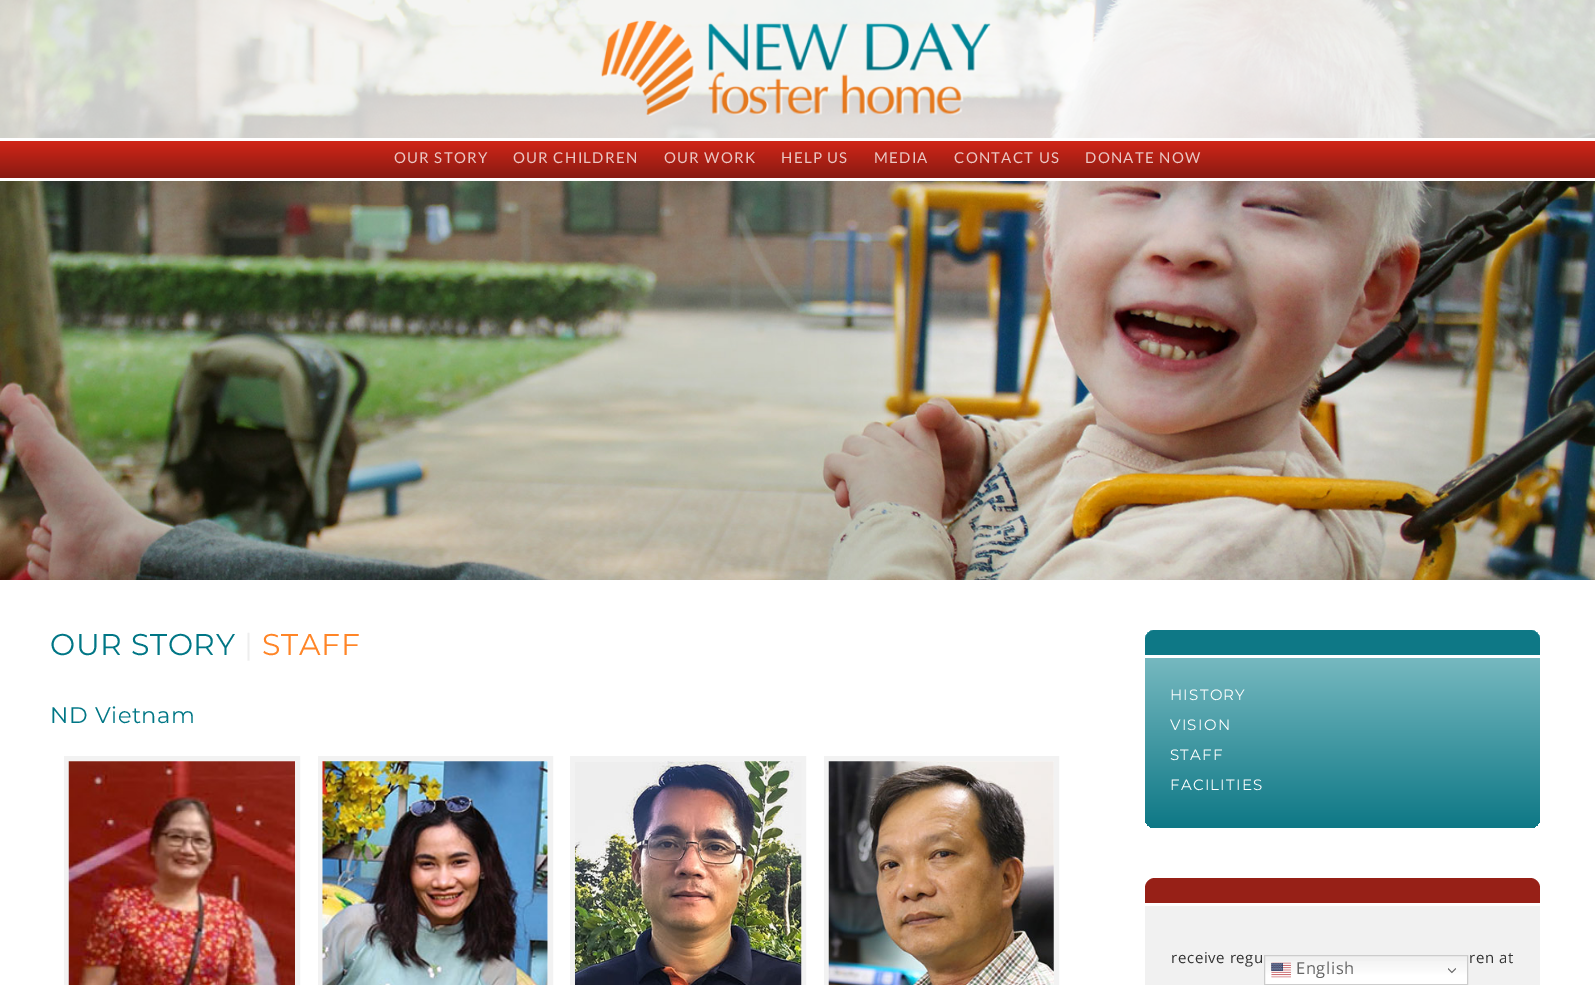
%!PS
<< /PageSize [1595 985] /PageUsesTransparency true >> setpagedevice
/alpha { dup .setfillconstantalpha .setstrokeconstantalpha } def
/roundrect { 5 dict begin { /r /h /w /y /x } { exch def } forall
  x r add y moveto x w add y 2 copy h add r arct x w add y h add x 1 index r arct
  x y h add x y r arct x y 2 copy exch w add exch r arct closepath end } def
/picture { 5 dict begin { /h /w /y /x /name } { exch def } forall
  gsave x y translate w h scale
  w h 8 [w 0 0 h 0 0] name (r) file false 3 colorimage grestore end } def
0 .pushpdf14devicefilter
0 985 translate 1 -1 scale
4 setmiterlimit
1 setgray
0 0 1595 985 rectfill
(img1.rgb) 0 0 1595 580 picture
0.75 alpha
0 0 1595 138 rectfill
1 alpha
(img2.rgb) 601 20 391 96 picture
gsave newpath 0 141 moveto 1595 141 lineto 1595 178 lineto 0 178 lineto closepath clip newpath
<< /ShadingType 2 /ColorSpace /DeviceRGB /Coords [798 140 798 178] /Extend [true true] /Function << /FunctionType 2 /Domain [0 1] /C0 [0.831 0.149 0.094] /C1 [0.529 0.102 0.071] /N 1 >> >> shfill grestore
0 138 1595 3 rectfill
0 178 1595 3 rectfill
/Lato-Regular [15 0 0 -15 0 0] selectfont
0.918 0.78 0.769 setrgbcolor
394 163 moveto 1.25 0 (OUR STORY) ashow
513 163 moveto 1.25 0 (OUR CHILDREN) ashow
664 163 moveto 1.25 0 (OUR WORK) ashow
781 163 moveto 1.25 0 (HELP US) ashow
874 163 moveto 1.25 0 (MEDIA) ashow
954 163 moveto 1.25 0 (CONTACT US) ashow
1085 163 moveto 1.25 0 (DONATE NOW) ashow
/Montserrat-Regular [30 0 0 -30 0 0] selectfont
0 0.463 0.522 setrgbcolor
50 655 moveto 0.6 0 (OUR STORY) ashow
0.933 setgray
244 655 moveto 0.6 0 (|) ashow
1 0.522 0.153 setrgbcolor
262 655 moveto 0.6 0 (STAFF) ashow
/Montserrat-Regular [22.5 0 0 -22.5 0 0] selectfont
0 0.463 0.522 setrgbcolor
50 723 moveto 0.6 0 (ND Vietnam) ashow
0.949 setgray
5 setlinewidth
66.5 758.5 231 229 rectstroke
(img3.rgb) 68 761 227 224 picture
320.5 758.5 230 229 rectstroke
(img4.rgb) 322 761 226 224 picture
572.5 758.5 231 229 rectstroke
(img5.rgb) 575 761 227 224 picture
826.5 758.5 230 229 rectstroke
(img6.rgb) 828 761 226 224 picture
gsave 1145 630 395 198 10 roundrect clip newpath
<< /ShadingType 2 /ColorSpace /DeviceRGB /Coords [1343 630 1343 828] /Extend [true true] /Function << /FunctionType 2 /Domain [0 1] /C0 [0.529 0.765 0.788] /C1 [0.055 0.471 0.525] /N 1 >> >> shfill grestore
0.055 0.471 0.525 setrgbcolor
newpath 1155 630 moveto 1530 630 lineto 1535.5 630 1540 634.5 1540 640 curveto 1540 658 lineto 1145 658 lineto 1145 640 lineto 1145 634.5 1149.5 630 1155 630 curveto closepath fill
1 setgray
1145 655 395 3 rectfill
/Montserrat-Regular [15 0 0 -15 0 0] selectfont
1170 700 moveto 1.25 0 (HISTORY) ashow
1170 730 moveto 1.25 0 (VISION) ashow
1170 760 moveto 1.25 0 (STAFF) ashow
1170 790 moveto 1.25 0 (FACILITIES) ashow
0.945 setgray
1145 878 395 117 10 roundrect fill
0.592 0.125 0.09 setrgbcolor
newpath 1155 878 moveto 1530 878 lineto 1535.5 878 1540 882.5 1540 888 curveto 1540 905 lineto 1145 905 lineto 1145 888 lineto 1145 882.5 1149.5 878 1155 878 curveto closepath fill
1 setgray
1145 903 395 3 rectfill
/OpenSans-Regular [15 0 0 -15 0 0] selectfont
0.2 setgray
1171 963 moveto 0.6 0 (receive regu) ashow
1469 963 moveto 0.6 0 (ren at) ashow
gsave newpath 1265 961 moveto 1467 961 lineto 1467 984 lineto 1265 984 lineto closepath clip newpath
<< /ShadingType 2 /ColorSpace /DeviceRGB /Coords [1366 955 1366 985] /Extend [true true] /Function << /FunctionType 3 /Domain [0 1] /Functions [<< /FunctionType 2 /Domain [0 1] /C0 [0.937 0.937 0.937] /C1 [1 1 1] /N 1 >> << /FunctionType 2 /Domain [0 1] /C0 [1 1 1] /C1 [1 1 1] /N 1 >>] /Bounds [0.7] /Encode [0 1 0 1] >> >> shfill grestore
0.8 setgray
1 setlinewidth
1264.5 955.5 203 29 rectstroke
(img7.rgb) 1271 962 20 16 picture
/OpenSans-Regular [16.5 0 0 -16.5 0 0] selectfont
0.4 setgray
1296 974 moveto 0.6 0 (English) ashow
(img8.rgb) 1448 968 8 6 picture
.poppdf14devicefilter showpage
